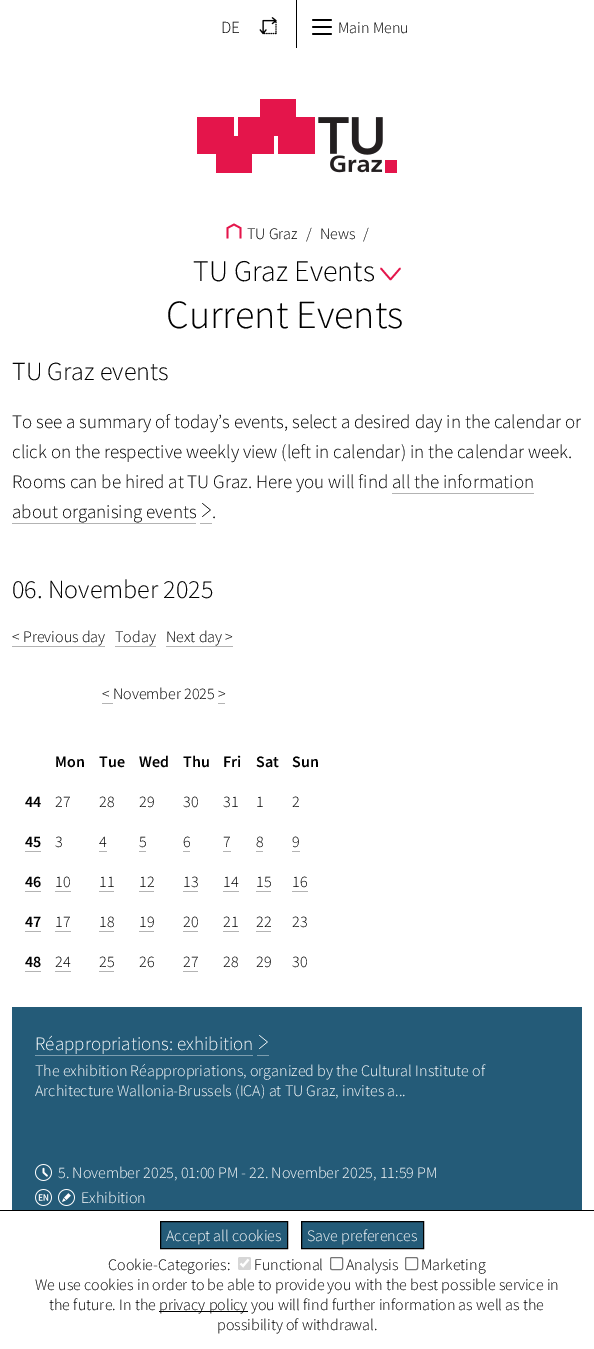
%!PS
<< /PageSize [594 1349] >> setpagedevice
/roundrect { 5 dict begin { /r /h /w /y /x } { exch def } forall
  x r add y moveto x w add y 2 copy h add r arct x w add y h add x 1 index r arct
  x y h add x y r arct x y 2 copy exch w add exch r arct closepath end } def
/picture { 5 dict begin { /h /w /y /x /name } { exch def } forall
  gsave x y translate w h scale
  w h 8 [w 0 0 h 0 0] name (r) file false 3 colorimage grestore end } def
0 1349 translate 1 -1 scale
4 setmiterlimit
1 setgray
0 0 594 1349 rectfill
0 setgray
296 0 1 49 rectfill
/SourceSansPro-Light [17 0 0 -17 0 0] selectfont
221 33 moveto (DE) show
(img1.rgb) 259 17 18 18 picture
1.7 setlinewidth
1 setlinecap
newpath 313 20 moveto 331 20 lineto 313 27 moveto 331 27 lineto 313 34 moveto 331 34 lineto stroke
/SourceSansPro-Light [16 0 0 -16 0 0] selectfont
338 33 moveto (Main Menu) show
1 setgray
296 48 1 1 rectfill
(img2.rgb) 197 99 200 74 picture
0 setgray
247 239 moveto (TU Graz) show
0.894 0.082 0.294 setrgbcolor
2 setlinecap
newpath 227.5 237.5 moveto 227.5 228 lineto 234 224.5 lineto 240.5 228 lineto 240.5 237.5 lineto stroke
0 setgray
306 239 moveto (/) show
320 239 moveto (News) show
363 239 moveto (/) show
/SourceSansPro-Light [30 0 0 -30 0 0] selectfont
193 281 moveto (TU Graz Events) show
0.894 0.082 0.294 setrgbcolor
1 setlinecap
1 setlinejoin
newpath 381 268.5 moveto 390.5 279.5 lineto 400 268.5 lineto stroke
/SourceSansPro-Light [40 0 0 -40 0 0] selectfont
0 setgray
166 328 moveto (Current Events) show
/SourceSansPro-Light [26 0 0 -26 0 0] selectfont
12 380 moveto (TU Graz events) show
/SourceSansPro-Light [19 0 0 -19 0 0] selectfont
12 428 moveto (To see a summary of today’s events, select a desired day in the calendar or) show
12 458 moveto (click on the respective weekly view \(left in calendar\) in the calendar week.) show
12 488 moveto (Rooms can be hired at TU Graz. Here you will find all the information) show
12 518 moveto (about organising events) show
0.702 setgray
392 493 142 1 rectfill
12 523 184 1 rectfill
200 523 12 1 rectfill
(img3.rgb) 202 503 9 14 picture
0 setgray
212 518 moveto (.) show
/SourceSansPro-Light [26 0 0 -26 0 0] selectfont
12 598 moveto (06. November 2025) show
/SourceSansPro-Light [16 0 0 -16 0 0] selectfont
12 642 moveto (< Previous day) show
0.702 setgray
12 646 93 1 rectfill
0 setgray
115 642 moveto (Today) show
0.702 setgray
115 646 41 1 rectfill
0 setgray
166 642 moveto (Next day >) show
0.702 setgray
166 646 67 1 rectfill
0 setgray
102 699 moveto (< November 2025 >) show
0.702 setgray
102 703 11 1 rectfill
218 703 7 1 rectfill
/SourceSansPro-SemiBold [16 0 0 -16 0 0] selectfont
0 setgray
55 767 moveto (Mon) show
99 767 moveto (Tue) show
139 767 moveto (Wed) show
183 767 moveto (Thu) show
223 767 moveto (Fri) show
256 767 moveto (Sat) show
292 767 moveto (Sun) show
25 807 moveto (44) show
/SourceSansPro-Light [16 0 0 -16 0 0] selectfont
55 807 moveto (27) show
99 807 moveto (28) show
139 807 moveto (29) show
183 807 moveto (30) show
223 807 moveto (31) show
256 807 moveto (1) show
292 807 moveto (2) show
/SourceSansPro-SemiBold [16 0 0 -16 0 0] selectfont
25 847 moveto (45) show
0.702 setgray
25 851 16 1 rectfill
/SourceSansPro-Light [16 0 0 -16 0 0] selectfont
0 setgray
55 847 moveto (3) show
99 847 moveto (4) show
0.702 setgray
99 851 8 1 rectfill
0 setgray
139 847 moveto (5) show
0.702 setgray
139 851 7 1 rectfill
0 setgray
183 847 moveto (6) show
0.702 setgray
183 851 7 1 rectfill
0 setgray
223 847 moveto (7) show
0.702 setgray
223 851 8 1 rectfill
0 setgray
256 847 moveto (8) show
0.702 setgray
256 851 7 1 rectfill
0 setgray
292 847 moveto (9) show
0.702 setgray
292 851 8 1 rectfill
/SourceSansPro-SemiBold [16 0 0 -16 0 0] selectfont
0 setgray
25 887 moveto (46) show
0.702 setgray
25 891 16 1 rectfill
/SourceSansPro-Light [16 0 0 -16 0 0] selectfont
0 setgray
55 887 moveto (10) show
0.702 setgray
55 891 16 1 rectfill
0 setgray
99 887 moveto (11) show
0.702 setgray
99 891 15 1 rectfill
0 setgray
139 887 moveto (12) show
0.702 setgray
139 891 15 1 rectfill
0 setgray
183 887 moveto (13) show
0.702 setgray
183 891 15 1 rectfill
0 setgray
223 887 moveto (14) show
0.702 setgray
223 891 16 1 rectfill
0 setgray
256 887 moveto (15) show
0.702 setgray
256 891 15 1 rectfill
0 setgray
292 887 moveto (16) show
0.702 setgray
292 891 16 1 rectfill
/SourceSansPro-SemiBold [16 0 0 -16 0 0] selectfont
0 setgray
25 927 moveto (47) show
0.702 setgray
25 931 16 1 rectfill
/SourceSansPro-Light [16 0 0 -16 0 0] selectfont
0 setgray
55 927 moveto (17) show
0.702 setgray
55 931 16 1 rectfill
0 setgray
99 927 moveto (18) show
0.702 setgray
99 931 15 1 rectfill
0 setgray
139 927 moveto (19) show
0.702 setgray
139 931 15 1 rectfill
0 setgray
183 927 moveto (20) show
0.702 setgray
183 931 15 1 rectfill
0 setgray
223 927 moveto (21) show
0.702 setgray
223 931 16 1 rectfill
0 setgray
256 927 moveto (22) show
0.702 setgray
256 931 15 1 rectfill
0 setgray
292 927 moveto (23) show
/SourceSansPro-SemiBold [16 0 0 -16 0 0] selectfont
25 967 moveto (48) show
0.702 setgray
25 971 16 1 rectfill
/SourceSansPro-Light [16 0 0 -16 0 0] selectfont
0 setgray
55 967 moveto (24) show
0.702 setgray
55 971 16 1 rectfill
0 setgray
99 967 moveto (25) show
0.702 setgray
99 971 15 1 rectfill
0 setgray
139 967 moveto (26) show
183 967 moveto (27) show
0.702 setgray
183 971 15 1 rectfill
0 setgray
223 967 moveto (28) show
256 967 moveto (29) show
292 967 moveto (30) show
0.141 0.357 0.471 setrgbcolor
12 1007 570 203 rectfill
/SourceSansPro-Light [19 0 0 -19 0 0] selectfont
1 setgray
35 1050 moveto (Réappropriations: exhibition) show
0.486 0.616 0.682 setrgbcolor
35 1055 218 1 rectfill
257 1055 12 1 rectfill
(img4.rgb) 259 1035 9 14 picture
/SourceSansPro-Light [16 0 0 -16 0 0] selectfont
1 setgray
35 1076 moveto (The exhibition Réappropriations, organized by the Cultural Institute of) show
35 1096 moveto (Architecture Wallonia-Brussels \(ICA\) at TU Graz, invites a...) show
(img5.rgb) 35 1164 17 17 picture
58 1178 moveto (5. November 2025, 01:00 PM - 22. November 2025, 11:59 PM) show
(img6.rgb) 35 1189 17 17 picture
(img7.rgb) 58 1189 17 17 picture
81 1203 moveto (Exhibition) show
0 setgray
0 1210 594 1 rectfill
0.141 0.357 0.471 setrgbcolor
newpath 160.5 1221.5 moveto 287.5 1221.5 lineto 287.5 1248.5 lineto 160.5 1248.5 lineto closepath gsave fill grestore
0 setgray
1 setlinewidth
0 setlinecap
0 setlinejoin
stroke
1 setgray
166 1241 moveto (Accept all cookies) show
0.141 0.357 0.471 setrgbcolor
newpath 301.5 1221.5 moveto 423.5 1221.5 lineto 423.5 1248.5 lineto 301.5 1248.5 lineto closepath gsave fill grestore
0 setgray
stroke
1 setgray
307 1241 moveto (Save preferences) show
0 setgray
108 1270 moveto (Cookie-Categories:) show
0.839 setgray
238 1257 13 13 2 roundrect fill
1 setgray
2.1 setlinewidth
newpath 240.5 1263.5 moveto 243 1266 lineto 248.5 1259.5 lineto stroke
0 setgray
254 1270 moveto (Functional) show
0.463 setgray
1 setlinewidth
330.5 1257.5 12 12 1.5 roundrect stroke
0 setgray
346 1270 moveto (Analysis) show
0.463 setgray
405.5 1257.5 12 12 1.5 roundrect stroke
0 setgray
421 1270 moveto (Marketing) show
35 1290 moveto (We use cookies in order to be able to provide you with the best possible service in) show
49 1310 moveto (the future. In the) show
159 1311 89 1 rectfill
159 1310 moveto (privacy policy you will find further information as well as the) show
217 1330 moveto (possibility of withdrawal.) show
showpage
